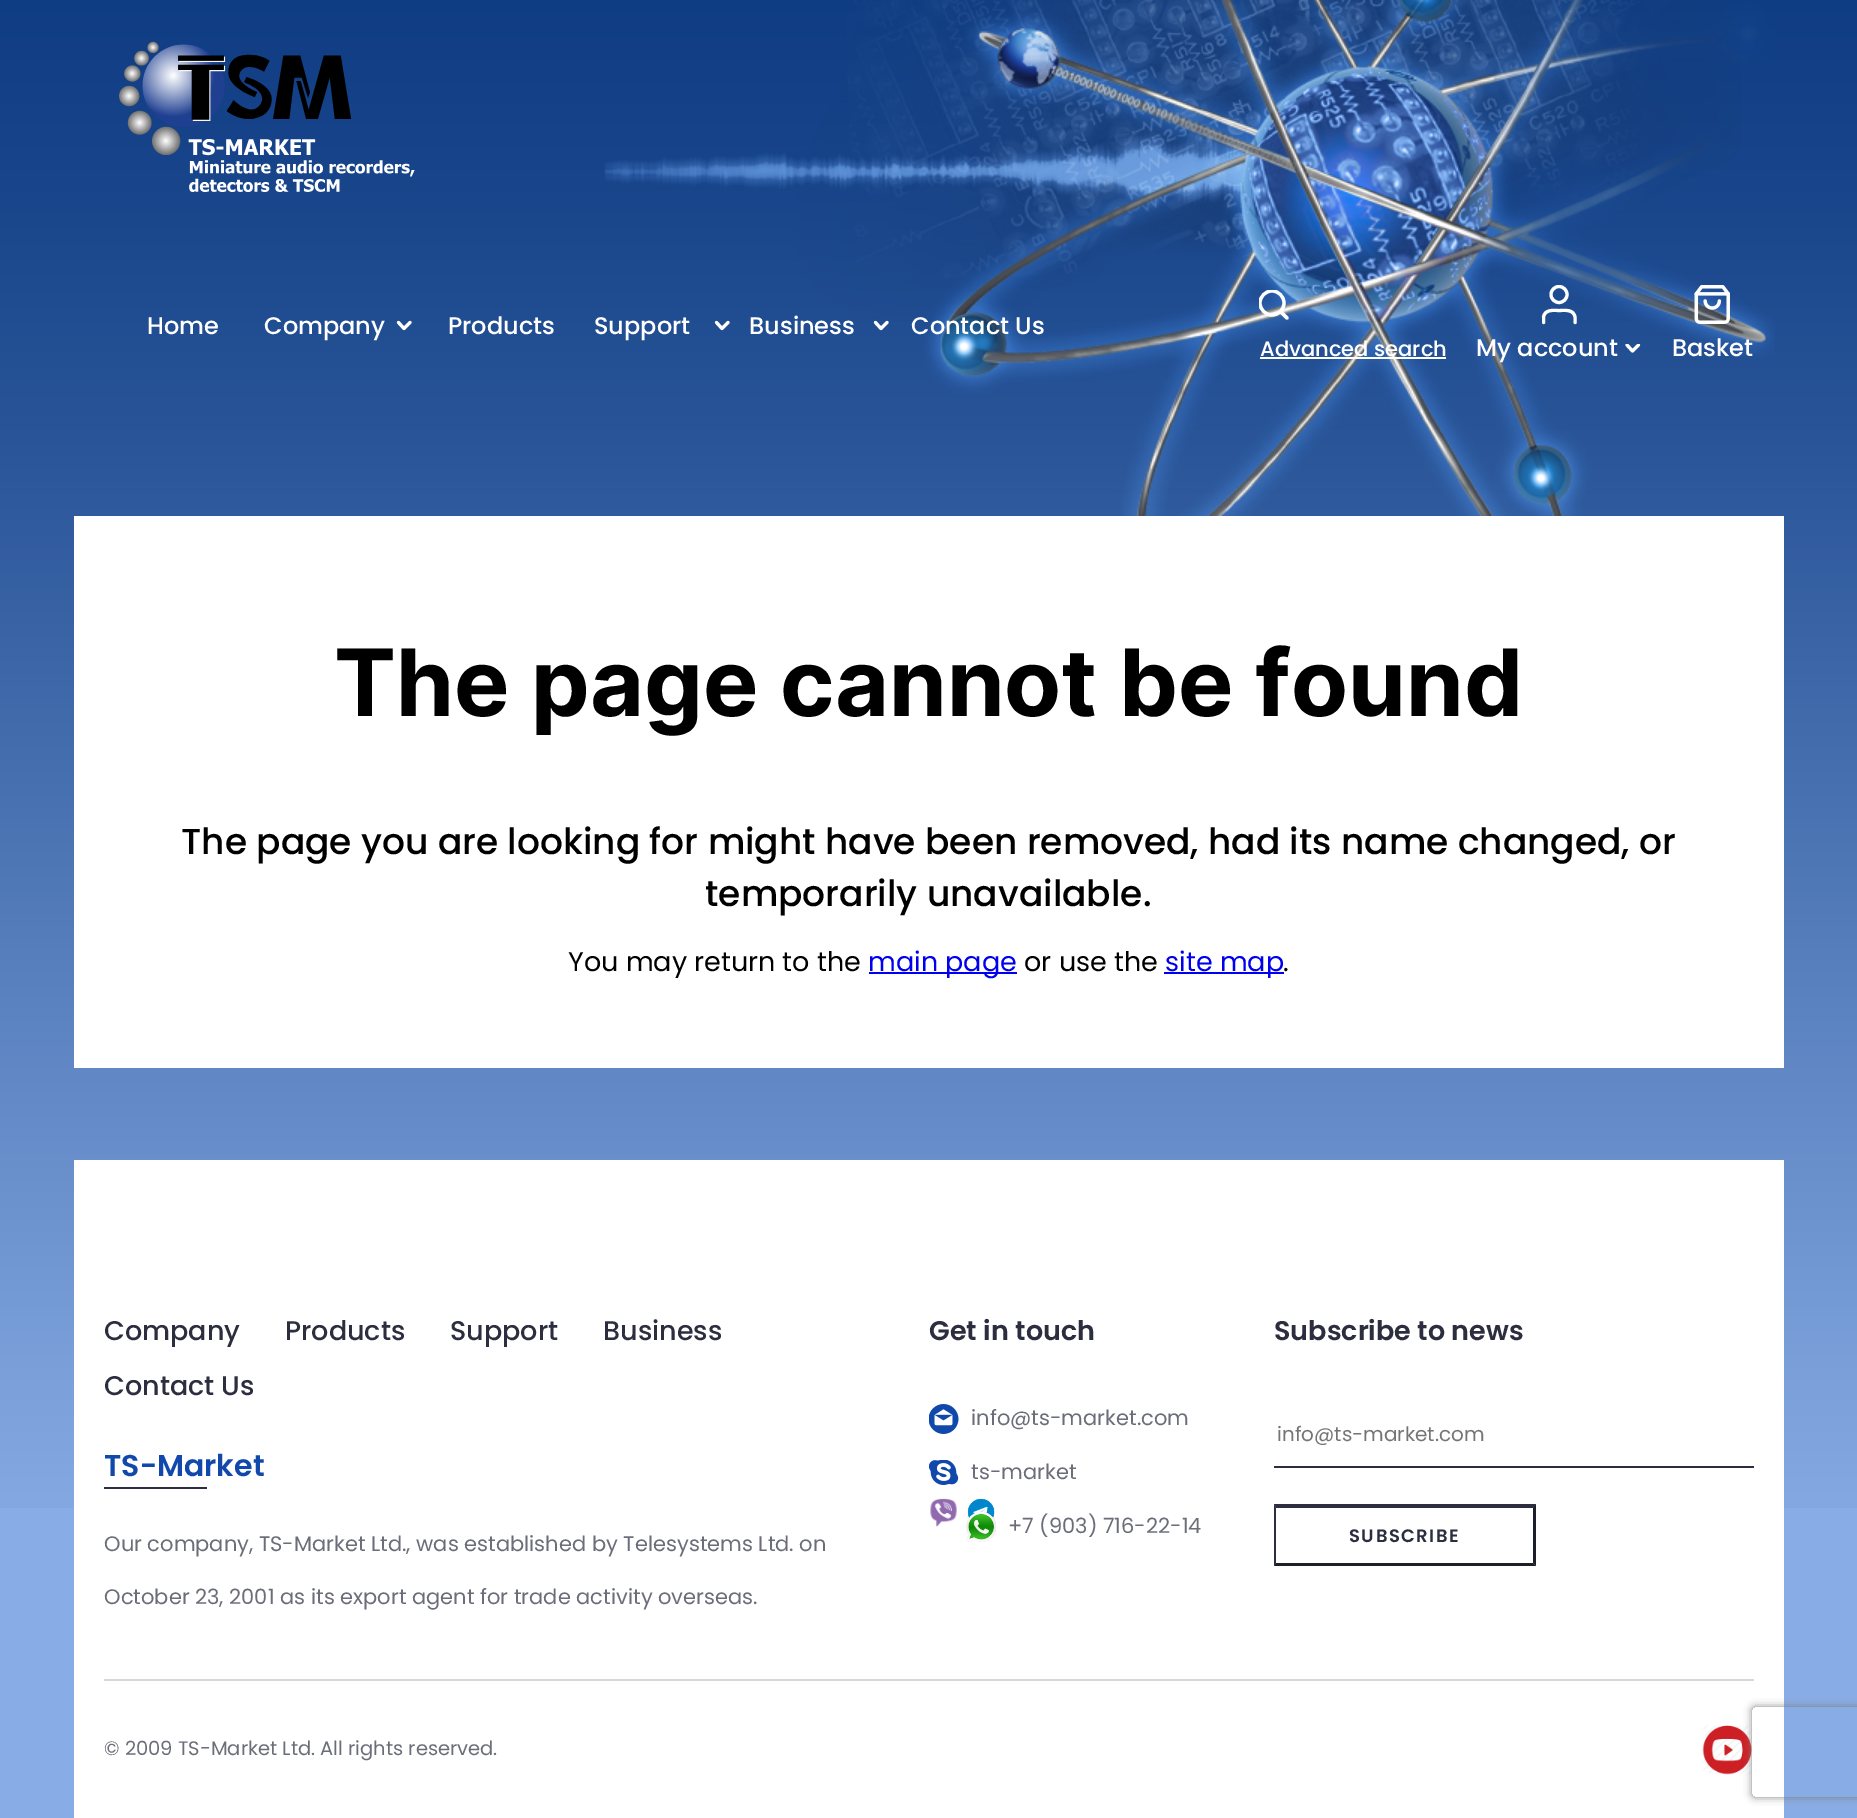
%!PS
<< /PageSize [1857 1818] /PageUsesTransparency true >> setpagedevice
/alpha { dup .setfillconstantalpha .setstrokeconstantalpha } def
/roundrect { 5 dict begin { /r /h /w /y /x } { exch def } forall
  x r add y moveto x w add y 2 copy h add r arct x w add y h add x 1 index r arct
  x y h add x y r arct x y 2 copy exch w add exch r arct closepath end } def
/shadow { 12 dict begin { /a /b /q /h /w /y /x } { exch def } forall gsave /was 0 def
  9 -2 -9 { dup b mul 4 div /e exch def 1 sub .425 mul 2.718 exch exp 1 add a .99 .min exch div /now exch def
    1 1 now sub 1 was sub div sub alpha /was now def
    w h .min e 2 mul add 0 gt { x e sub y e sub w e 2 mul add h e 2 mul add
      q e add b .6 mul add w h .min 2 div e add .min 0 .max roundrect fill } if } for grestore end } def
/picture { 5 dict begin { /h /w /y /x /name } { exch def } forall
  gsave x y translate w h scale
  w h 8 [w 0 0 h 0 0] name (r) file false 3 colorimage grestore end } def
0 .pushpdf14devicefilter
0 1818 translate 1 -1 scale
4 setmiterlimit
0.533 0.675 0.898 setrgbcolor
0 0 1857 1818 rectfill
(img1.rgb) 0 0 1857 1508 picture
(img2.rgb) 604 0 1171 516 picture
(img3.rgb) 119 41 296 151 picture
/Poppins-Medium [24 0 0 -24 0 0] selectfont
1 setgray
147 334 moveto (Home) show
264 334 moveto (Company) show
3.1 setlinewidth
1 setlinecap
1 setlinejoin
newpath 410 322.5 moveto 404 328.5 lineto 398.5 322.5 lineto stroke
448 334 moveto (Products) show
594 334 moveto (Support) show
newpath 728 322.5 moveto 722 328.5 lineto 716.5 322.5 lineto stroke
749 334 moveto (Business) show
newpath 887 322.5 moveto 881 328.5 lineto 875.5 322.5 lineto stroke
911 334 moveto (Contact Us) show
gsave
1259 290 30 30 rectclip
3.2 setlinewidth
0 setlinecap
0 setlinejoin
newpath 1272 303 12 0 360 arc closepath stroke
grestore
3.2 setlinewidth
newpath 1287 318 moveto 1280.5 311.5 lineto stroke
/Poppins-Medium [21 0 0 -21 0 0] selectfont
1260 356 moveto (Advanced search) show
1260 357 186 2 rectfill
3.1 setlinewidth
newpath 1575 322.5 moveto 1575 317 lineto 1573.5 309 1565 310.5 1559 310.5 curveto 1553.5 310.5 1545 309 1543.5 317 curveto 1543.5 322.5 lineto stroke
0 setlinecap
0 setlinejoin
newpath 1559 294.5 8 0 360 arc closepath stroke
/Poppins-Medium [24 0 0 -24 0 0] selectfont
1476 356 moveto (My account) show
gsave
1625 344 16 9 rectclip
1 setlinecap
1 setlinejoin
newpath 1638.5 345 moveto 1632.5 351 lineto 1627 345 lineto stroke
grestore
(img4.rgb) 1694 285 36 39 picture
1672 356 moveto (Basket) show
74 516 1710 552 rectfill
/Inter-Bold [93 0 0 -93 0 0] selectfont
0 setgray
334 716 moveto (The page cannot be found) show
/Poppins-Medium [36 0 0 -36 0 0] selectfont
181 854 moveto (The page you are looking for might have been removed, had its name changed, or) show
705 906 moveto (temporarily unavailable.) show
/Poppins-Regular [27 0 0 -27 0 0] selectfont
568 971 moveto (You may return to the) show
0 0 0.933 setrgbcolor
869 972 148 2 rectfill
868 971 moveto (main page) show
0 setgray
1024 971 moveto (or use the) show
0 0 0.933 setrgbcolor
1164 972 120 2 rectfill
1165 971 moveto (site map) show
0 setgray
1283 971 moveto (.) show
1 setgray
74 1160 1710 658 rectfill
/Poppins-Medium [27 0 0 -27 0 0] selectfont
0.173 0.18 0.247 setrgbcolor
104 1340 moveto (Company) show
285 1340 moveto (Products) show
450 1340 moveto (Support) show
603 1340 moveto (Business) show
104 1395 moveto (Contact Us) show
/Poppins-SemiBold [30 0 0 -30 0 0] selectfont
0.067 0.282 0.671 setrgbcolor
104 1476 moveto (TS-Market) show
0.173 0.18 0.247 setrgbcolor
104 1487 103 2 rectfill
/Poppins-Regular [21 0 0 -21 0 0] selectfont
0.42 0.427 0.475 setrgbcolor
104 1551 moveto (Our company, TS-Market Ltd., was established by Telesystems Ltd. on) show
104 1604 moveto (October 23, 2001 as its export agent for trade activity overseas.) show
/Poppins-SemiBold [27 0 0 -27 0 0] selectfont
0.173 0.18 0.247 setrgbcolor
929 1340 moveto (Get in touch) show
(img5.rgb) 929 1404 30 30 picture
/Poppins-Regular [21 0 0 -21 0 0] selectfont
0.42 0.427 0.475 setrgbcolor
971 1425 moveto (info@ts-market.com) show
(img6.rgb) 929 1460 30 25 picture
971 1479 moveto (ts-market) show
(img7.rgb) 930 1498 27 29 picture
(img8.rgb) 967 1498 28 20 picture
(img9.rgb) 966 1512 30 30 picture
1008 1533 moveto (+7 \(903\) 716-22-14) show
/Poppins-SemiBold [27 0 0 -27 0 0] selectfont
0.173 0.18 0.247 setrgbcolor
1274 1340 moveto (Subscribe to news) show
1274 1466 480 2 rectfill
/Poppins-Regular [20 0 0 -20 0 0] selectfont
0.459 setgray
1277 1441 moveto (info@ts-market.com) show
0.173 0.18 0.247 setrgbcolor
newpath 1274 1504 moveto 1536 1504 lineto 1533 1508 lineto 1276 1508 lineto closepath fill
0.114 0.122 0.165 setrgbcolor
newpath 1536 1504 moveto 1536 1566 lineto 1533 1563 lineto 1533 1508 lineto closepath fill
newpath 1536 1566 moveto 1274 1566 lineto 1276 1563 lineto 1533 1563 lineto closepath fill
0.173 0.18 0.247 setrgbcolor
newpath 1274 1566 moveto 1274 1504 lineto 1276 1508 lineto 1276 1563 lineto closepath fill
/Poppins-SemiBold [18 0 0 -18 0 0] selectfont
1349 1542 moveto 1.5 0 (SUBSCRIBE) ashow
0.847 setgray
104 1679 1650 2 rectfill
/Poppins-Regular [19.5 0 0 -19.5 0 0] selectfont
0.42 0.427 0.475 setrgbcolor
104 1755 moveto (© 2009 TS-Market Ltd. All rights reserved.) show
(img10.rgb) 1702 1725 50 50 picture
gsave
newpath 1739 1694 moveto 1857 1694 lineto 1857 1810 lineto 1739 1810 lineto closepath 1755 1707 moveto 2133 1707 lineto 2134.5 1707 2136 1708.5 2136 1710 curveto 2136 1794 lineto 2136 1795.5 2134.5 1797 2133 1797 curveto 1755 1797 lineto 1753.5 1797 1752 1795.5 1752 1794 curveto 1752 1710 lineto 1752 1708.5 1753.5 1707 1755 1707 curveto closepath eoclip newpath
0.502 setgray
1752 1707 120 90 3 4 1 shadow
grestore
.poppdf14devicefilter showpage
